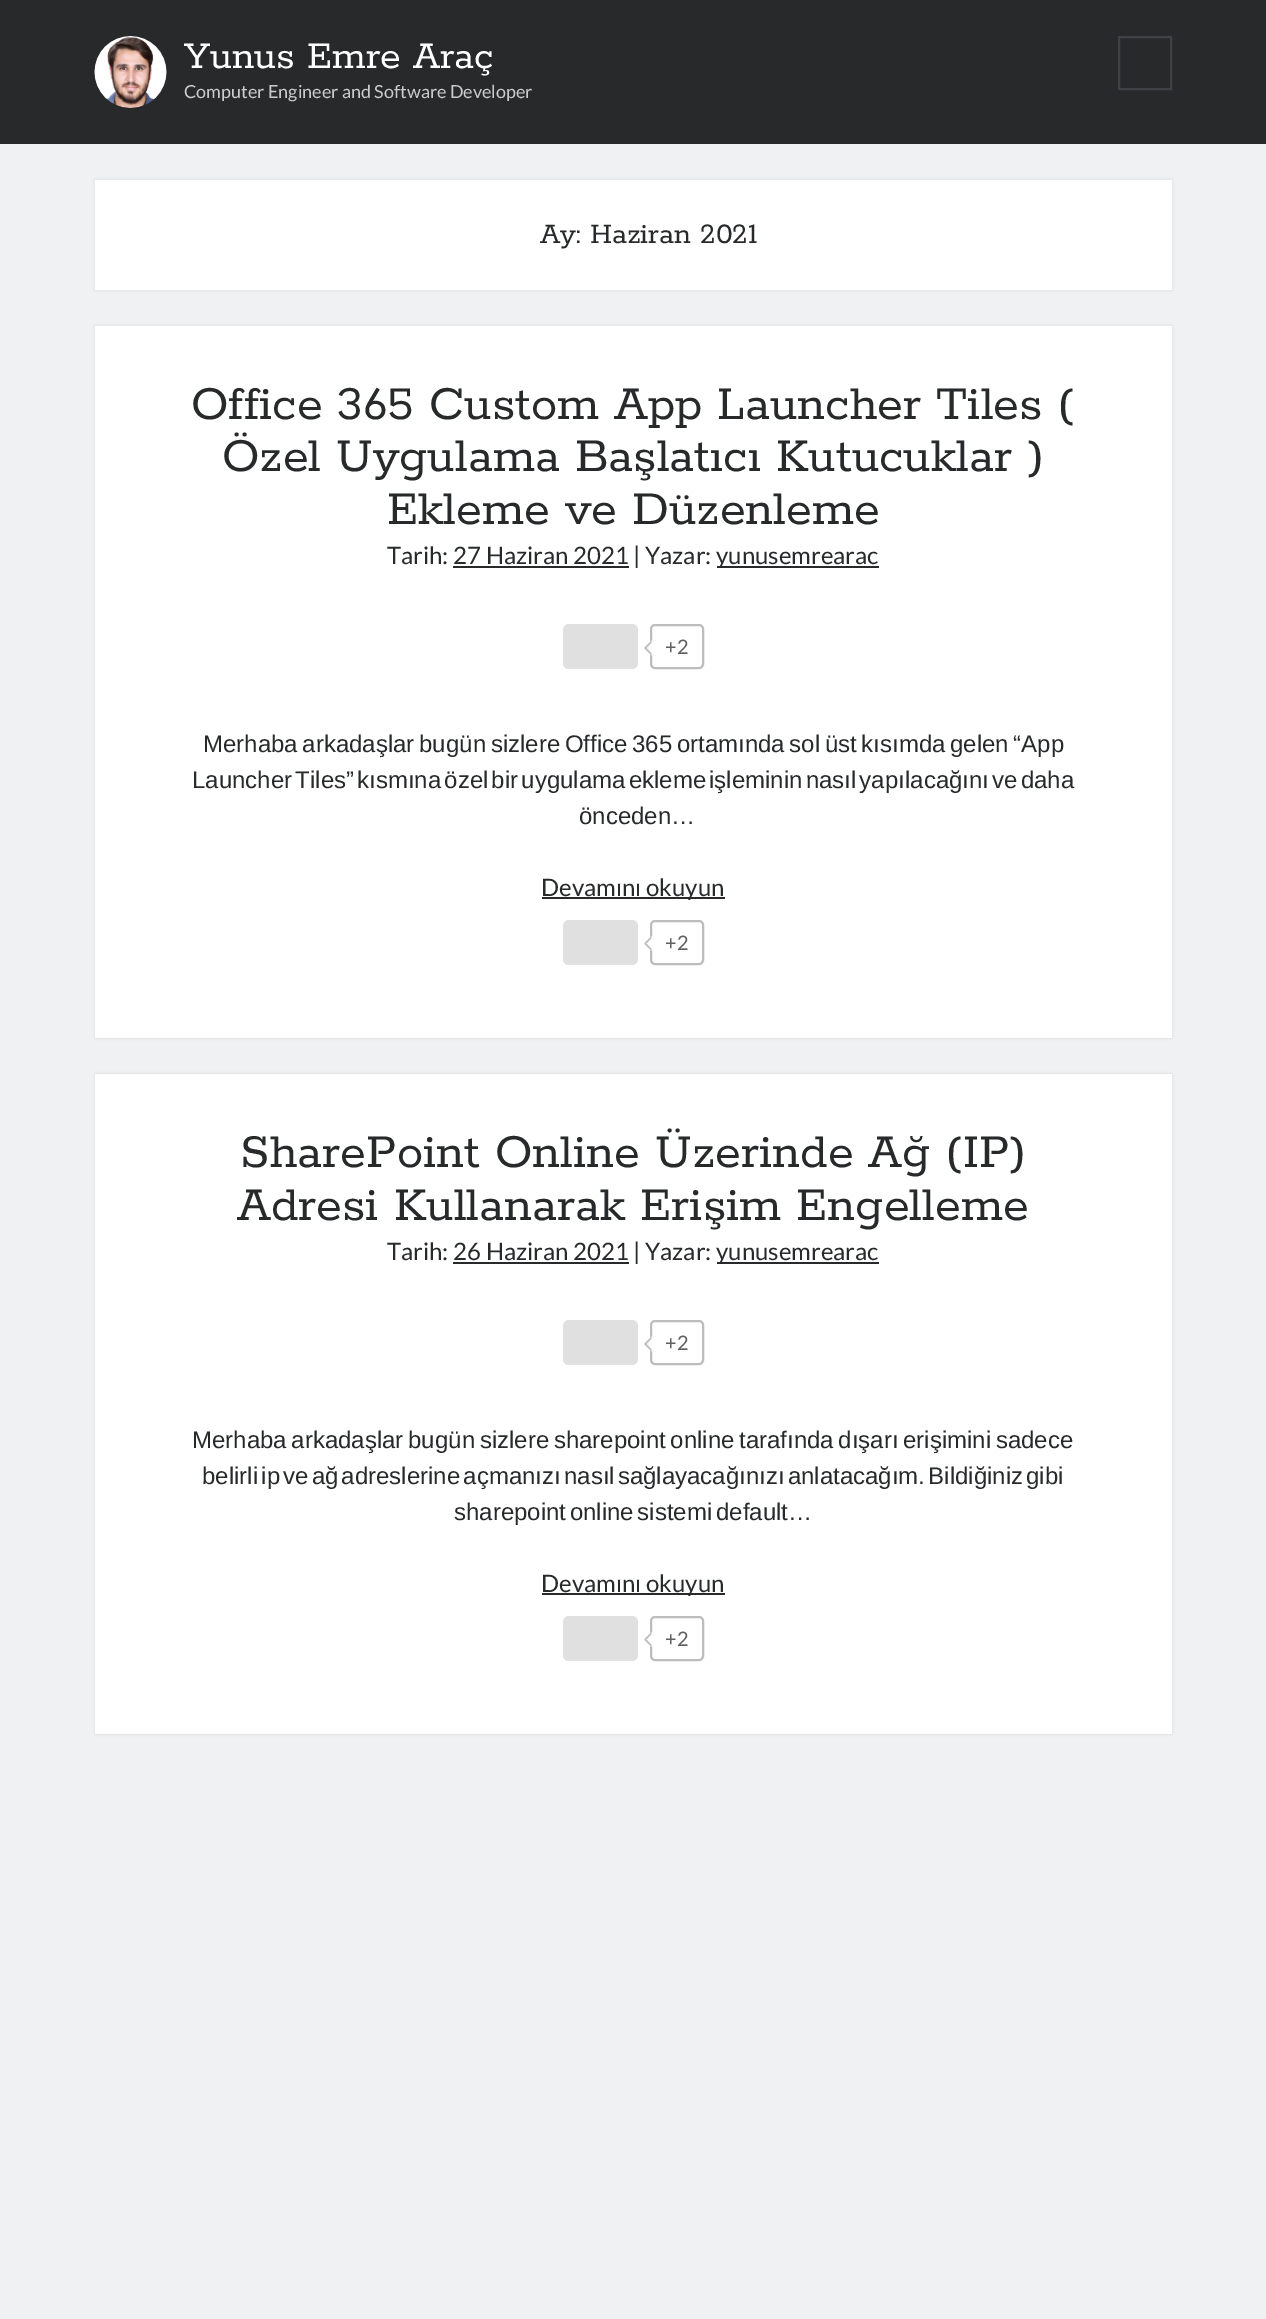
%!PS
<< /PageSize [1266 2319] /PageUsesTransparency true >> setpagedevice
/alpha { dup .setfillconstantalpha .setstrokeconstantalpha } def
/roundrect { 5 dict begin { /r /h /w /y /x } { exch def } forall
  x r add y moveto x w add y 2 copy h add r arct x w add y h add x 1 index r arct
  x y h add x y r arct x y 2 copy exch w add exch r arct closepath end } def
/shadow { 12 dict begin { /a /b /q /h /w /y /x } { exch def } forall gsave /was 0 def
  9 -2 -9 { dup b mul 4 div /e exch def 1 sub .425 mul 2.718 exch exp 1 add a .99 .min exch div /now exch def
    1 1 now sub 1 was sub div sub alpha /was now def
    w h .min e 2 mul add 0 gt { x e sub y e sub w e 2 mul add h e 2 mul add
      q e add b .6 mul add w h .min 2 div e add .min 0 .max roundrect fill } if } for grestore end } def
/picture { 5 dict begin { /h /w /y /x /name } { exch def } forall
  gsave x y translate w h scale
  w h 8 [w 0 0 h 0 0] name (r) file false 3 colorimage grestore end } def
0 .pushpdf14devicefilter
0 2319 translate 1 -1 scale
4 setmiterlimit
0.153 0.161 0.169 setrgbcolor
0 0 1266 2319 rectfill
(img1.rgb) 94 36 73 72 picture
/Rokkitt-Regular [42 0 0 -42 0 0] selectfont
1 setgray
184 68 moveto (Yunus Emre Araç) show
/Lato-Regular [18 0 0 -18 0 0] selectfont
0.8 setgray
184 98 moveto (Computer Engineer and Software Developer) show
0.243 0.255 0.271 setrgbcolor
2 setlinewidth
1119 37 52 52 rectstroke
0.941 0.945 0.949 setrgbcolor
0 144 1266 2175 rectfill
0.153 0.169 0.184 setrgbcolor
95 180 1077 110 0 1.5 0.1 shadow
1 setgray
95 180 1077 110 rectfill
/Rokkitt-Regular [31.5 0 0 -31.5 0 0] selectfont
0.153 0.161 0.169 setrgbcolor
540 243 moveto (Ay: Haziran 2021) show
0.153 0.169 0.184 setrgbcolor
95 326 1077 712 0 1.5 0.1 shadow
1 setgray
95 326 1077 712 rectfill
/Rokkitt-Regular [52.5 0 0 -52.5 0 0] selectfont
0.153 0.161 0.169 setrgbcolor
191 419 moveto (Office 365 Custom App Launcher Tiles \() show
222 471 moveto (Özel Uygulama Başlatıcı Kutucuklar \)) show
387 524 moveto (Ekleme ve Düzenleme) show
/Lato-Regular [24 0 0 -24 0 0] selectfont
387 564 moveto (Tarih: 27 Haziran 2021 | Yazar:) show
453 566 176 2 rectfill
717 566 162 2 rectfill
716 564 moveto (yunusemrearac) show
0.878 setgray
563 624 75 45 6 roundrect fill
0.741 setgray
651 625 52 43 4 roundrect stroke
1 setgray
newpath 651.5 640.5 moveto 659 648 lineto 651.5 655.5 lineto 644 648 lineto closepath fill
0.741 setgray
newpath 651.5 655.5 moveto 644 648 lineto 646.5 648 lineto 651.5 653.5 lineto closepath 644 648 moveto 651.5 640.5 lineto 651.5 642.5 lineto 646.5 648 lineto closepath fill
/Lato-Regular [20 0 0 -20 0 0] selectfont
0.38 setgray
665 654 moveto (+2) show
/LiberationSans-Regular [24 0 0 -24 0 0] selectfont
0.153 0.161 0.169 setrgbcolor
203 752 moveto -2 0 32 (Merhaba arkadaşlar bugün sizlere Office 365 ortamında sol üst kısımda gelen “App) widthshow
192 788 moveto -3.5 0 32 (Launcher Tiles” kısmına özel bir uygulama ekleme işleminin nasıl yapılacağını ve daha) widthshow
579 824 moveto (önceden…) show
542 897 183 2 rectfill
/Lato-Regular [24 0 0 -24 0 0] selectfont
541 896 moveto (Devamını okuyun) show
0.878 setgray
563 920 75 45 6 roundrect fill
0.741 setgray
651 921 52 43 4 roundrect stroke
1 setgray
newpath 651.5 936 moveto 659 943.5 lineto 651.5 951 lineto 644 943.5 lineto closepath fill
0.741 setgray
newpath 651.5 951 moveto 644 943.5 lineto 646.5 943.5 lineto 651.5 949 lineto closepath fill
newpath 644 943.5 moveto 651.5 936 lineto 651.5 938 lineto 646.5 943.5 lineto closepath fill
/Lato-Regular [20 0 0 -20 0 0] selectfont
0.38 setgray
665 950 moveto (+2) show
0.153 0.169 0.184 setrgbcolor
95 1074 1077 660 0 1.5 0.1 shadow
1 setgray
95 1074 1077 660 rectfill
/Rokkitt-Regular [52.5 0 0 -52.5 0 0] selectfont
0.153 0.161 0.169 setrgbcolor
240 1167 moveto (SharePoint Online Üzerinde Ağ \(IP\)) show
237 1220 moveto (Adresi Kullanarak Erişim Engelleme) show
/Lato-Regular [24 0 0 -24 0 0] selectfont
387 1260 moveto (Tarih: 26 Haziran 2021 | Yazar:) show
453 1262 176 2 rectfill
717 1262 162 2 rectfill
716 1260 moveto (yunusemrearac) show
0.878 setgray
563 1320 75 45 6 roundrect fill
0.741 setgray
651 1321 52 43 4 roundrect stroke
1 setgray
newpath 651.5 1336.5 moveto 659 1344 lineto 651.5 1351.5 lineto 644 1344 lineto closepath fill
0.741 setgray
newpath 651.5 1351.5 moveto 644 1344 lineto 646.5 1344 lineto 651.5 1349.5 lineto closepath 644 1344 moveto 651.5 1336.5 lineto 651.5 1338.5 lineto 646.5 1344 lineto closepath fill
/Lato-Regular [20 0 0 -20 0 0] selectfont
0.38 setgray
665 1350 moveto (+2) show
/LiberationSans-Regular [24 0 0 -24 0 0] selectfont
0.153 0.161 0.169 setrgbcolor
192 1448 moveto -2 0 32 (Merhaba arkadaşlar bugün sizlere sharepoint online tarafında dışarı erişimini sadece) widthshow
202 1484 moveto -3.5 0 32 (belirli ip ve ağ adreslerine açmanızı nasıl sağlayacağınızı anlatacağım. Bildiğiniz gibi) widthshow
454 1520 moveto -3 0 32 (sharepoint online sistemi default…) widthshow
542 1593 183 2 rectfill
/Lato-Regular [24 0 0 -24 0 0] selectfont
541 1592 moveto (Devamını okuyun) show
0.878 setgray
563 1616 75 45 6 roundrect fill
0.741 setgray
651 1617 52 43 4 roundrect stroke
1 setgray
newpath 651.5 1632 moveto 659 1639.5 lineto 651.5 1647 lineto 644 1639.5 lineto closepath fill
0.741 setgray
newpath 651.5 1647 moveto 644 1639.5 lineto 646.5 1639.5 lineto 651.5 1645 lineto closepath fill
newpath 644 1639.5 moveto 651.5 1632 lineto 651.5 1634 lineto 646.5 1639.5 lineto closepath fill
/Lato-Regular [20 0 0 -20 0 0] selectfont
0.38 setgray
665 1646 moveto (+2) show
.poppdf14devicefilter showpage
